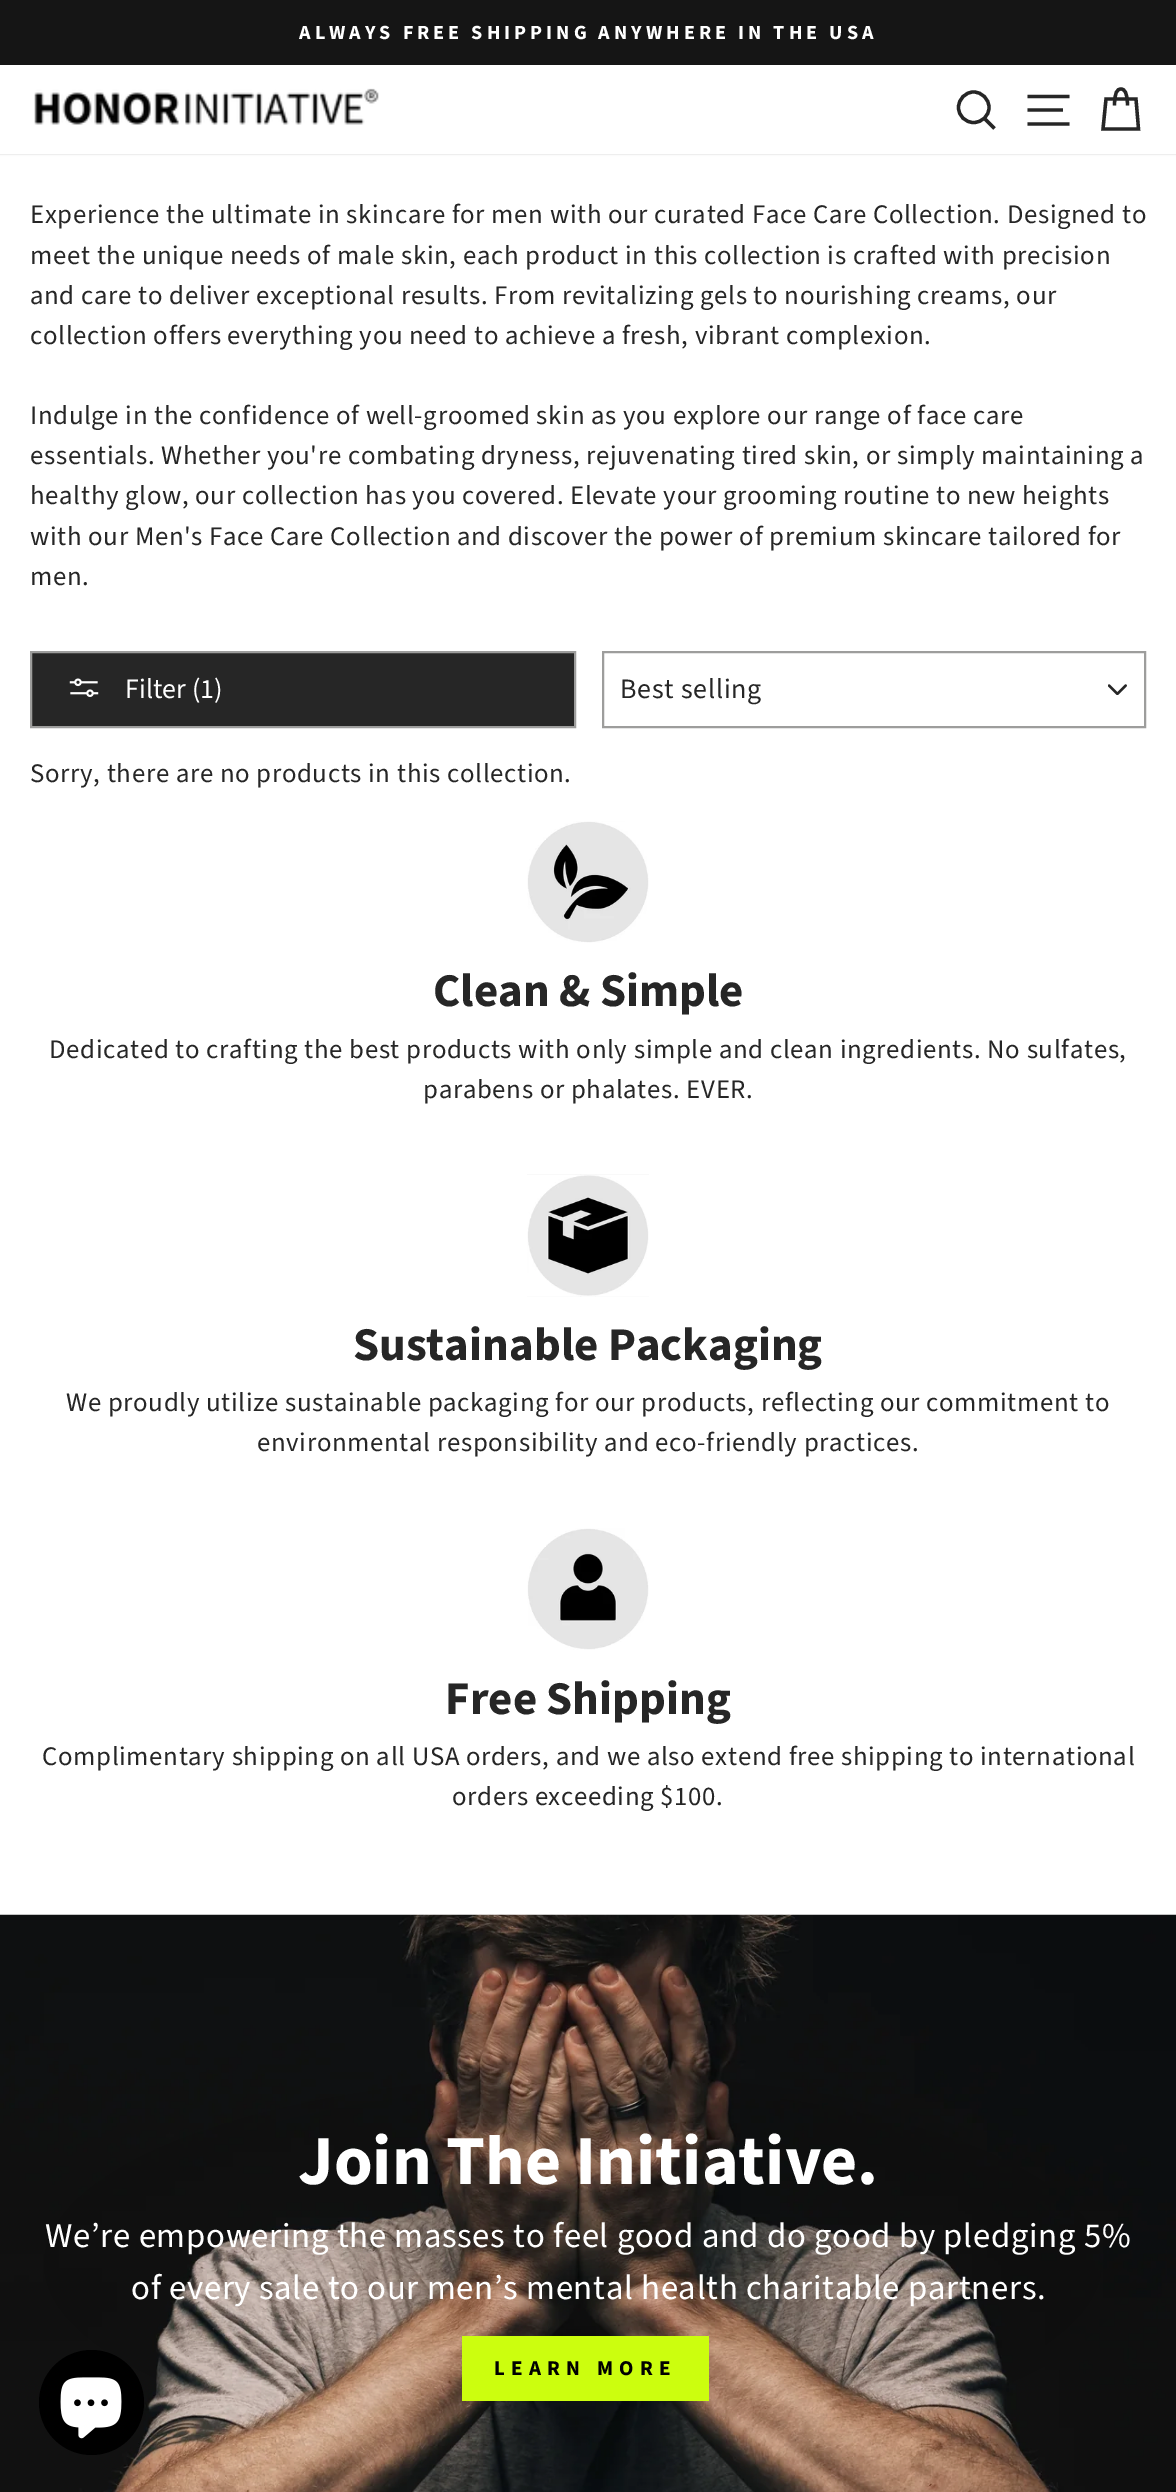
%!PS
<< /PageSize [1176 2492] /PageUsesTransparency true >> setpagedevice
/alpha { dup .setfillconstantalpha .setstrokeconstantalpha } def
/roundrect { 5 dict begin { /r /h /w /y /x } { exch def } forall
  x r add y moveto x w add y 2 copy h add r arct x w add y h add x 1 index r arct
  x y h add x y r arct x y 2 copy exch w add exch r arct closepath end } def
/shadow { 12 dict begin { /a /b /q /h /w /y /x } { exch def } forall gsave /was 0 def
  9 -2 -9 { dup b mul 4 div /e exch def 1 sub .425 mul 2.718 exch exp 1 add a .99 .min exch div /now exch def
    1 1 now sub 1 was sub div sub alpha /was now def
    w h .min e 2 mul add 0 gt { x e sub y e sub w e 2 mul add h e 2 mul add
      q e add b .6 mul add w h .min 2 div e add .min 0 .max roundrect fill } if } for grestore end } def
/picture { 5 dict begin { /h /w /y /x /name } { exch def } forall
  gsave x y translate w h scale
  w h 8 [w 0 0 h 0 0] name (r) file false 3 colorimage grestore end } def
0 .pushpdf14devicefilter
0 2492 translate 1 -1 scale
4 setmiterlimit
1 setgray
0 0 1176 2492 rectfill
0.082 setgray
0 0 1176 65 rectfill
/SourceSansPro-Bold [20.1 0 0 -20.1 0 0] selectfont
1 setgray
299 39 moveto 4 0 (ALWAYS FREE SHIPPING ANYWHERE IN THE USA) ashow
gsave
newpath 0 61 moveto 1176 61 lineto 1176 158 lineto 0 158 lineto closepath 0 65 moveto 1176 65 lineto 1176 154 lineto 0 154 lineto closepath eoclip newpath
0 setgray
0 65 1176 89 0 1 0.2 shadow
grestore
(img1.rgb) 34 88 345 37 picture
0.149 setgray
3.3 setlinewidth
newpath 989 107.5 moveto 989 116 982 122.5 973.5 122.5 curveto 965.5 122.5 958.5 116 958.5 107.5 curveto 958.5 99 965.5 92 973.5 92 curveto 982 92 989 99 989 107.5 curveto closepath 994.5 128.5 moveto 984.5 118.5 lineto stroke
newpath 1027.5 96.5 moveto 1069.5 96.5 lineto 1027.5 110 moveto 1063 110 lineto 1027.5 124 moveto 1069.5 124 lineto stroke
newpath 1114.5 105.5 moveto 1114.5 92.5 1117 89 1121 89 curveto 1124.5 89 1127.5 92.5 1127.5 105.5 curveto 1106 99 moveto 1136 99 lineto 1138.5 129 lineto 1103 129 lineto closepath stroke
/SourceSansPro-Regular [26.8 0 0 -26.8 0 0] selectfont
30 223 moveto 0.67 0 (Experience the ultimate in skincare for men with our curated Face Care Collection. Designed to) ashow
30 264 moveto 0.67 0 (meet the unique needs of male skin, each product in this collection is crafted with precision) ashow
30 304 moveto 0.67 0 (and care to deliver exceptional results. From revitalizing gels to nourishing creams, our) ashow
30 344 moveto 0.67 0 (collection offers everything you need to achieve a fresh, vibrant complexion.) ashow
30 424 moveto 0.67 0 (Indulge in the confidence of well-groomed skin as you explore our range of face care) ashow
30 464 moveto 0.67 0 (essentials. Whether you're combating dryness, rejuvenating tired skin, or simply maintaining a) ashow
30 504 moveto 0.67 0 (healthy glow, our collection has you covered. Elevate your grooming routine to new heights) ashow
30 545 moveto 0.67 0 (with our Men's Face Care Collection and discover the power of premium skincare tailored for) ashow
30 585 moveto 0.67 0 (men.) ashow
newpath 31 652 moveto 575 652 lineto 575 727 lineto 31 727 lineto closepath gsave fill grestore
0.616 0.616 0.612 setrgbcolor
2 setlinewidth
stroke
(img2.rgb) 69 678 30 19 picture
/SourceSansPro-Regular [28 0 0 -28 0 0] selectfont
1 setgray
125 698 moveto (Filter \(1\)) show
(img3.rgb) 1108 684 19 11 picture
0.616 0.616 0.612 setrgbcolor
603 652 542 75 rectstroke
0.149 setgray
620 698 moveto 0.75 0 (Best selling) ashow
/SourceSansPro-Regular [26.8 0 0 -26.8 0 0] selectfont
30 782 moveto 0.67 0 (Sorry, there are no products in this collection.) ashow
(img4.rgb) 527 821 122 122 picture
/SourceSansPro-Bold [46.9 0 0 -46.9 0 0] selectfont
433 1006 moveto (Clean & Simple) show
/SourceSansPro-Regular [26.8 0 0 -26.8 0 0] selectfont
49 1058 moveto 0.67 0 (Dedicated to crafting the best products with only simple and clean ingredients. No sulfates,) ashow
423 1098 moveto 0.67 0 (parabens or phalates. EVER.) ashow
(img5.rgb) 527 1174 122 123 picture
/SourceSansPro-Bold [46.9 0 0 -46.9 0 0] selectfont
353 1360 moveto (Sustainable Packaging) show
/SourceSansPro-Regular [26.8 0 0 -26.8 0 0] selectfont
66 1411 moveto 0.67 0 (We proudly utilize sustainable packaging for our products, reflecting our commitment to) ashow
257 1451 moveto 0.67 0 (environmental responsibility and eco-friendly practices.) ashow
(img6.rgb) 527 1528 122 122 picture
/SourceSansPro-Bold [46.9 0 0 -46.9 0 0] selectfont
445 1714 moveto (Free Shipping) show
/SourceSansPro-Regular [26.8 0 0 -26.8 0 0] selectfont
42 1765 moveto 0.67 0 (Complimentary shipping on all USA orders, and we also extend free shipping to international) ashow
452 1805 moveto 0.67 0 (orders exceeding $100.) ashow
(img7.rgb) 0 1914 1176 578 picture
/SourceSansPro-Bold [70 0 0 -70 0 0] selectfont
1 setgray
298 2184 moveto (Join The Initiative.) show
/SourceSansPro-Regular [34.8 0 0 -34.8 0 0] selectfont
45 2247 moveto 0.67 0 (We’re empowering the masses to feel good and do good by pledging 5%) ashow
131 2299 moveto 0.67 0 (of every sale to our men’s mental health charitable partners.) ashow
0.8 0.996 0.055 setrgbcolor
462 2336 247 65 rectfill
/SourceSansPro-Bold [21 0 0 -21 0 0] selectfont
0 setgray
494 2375 moveto 6.25 0 (LEARN MORE) ashow
newpath 91.5 2402.5 52.5 0 360 arc closepath fill
(img8.rgb) 60 2377 62 62 picture
.poppdf14devicefilter showpage
